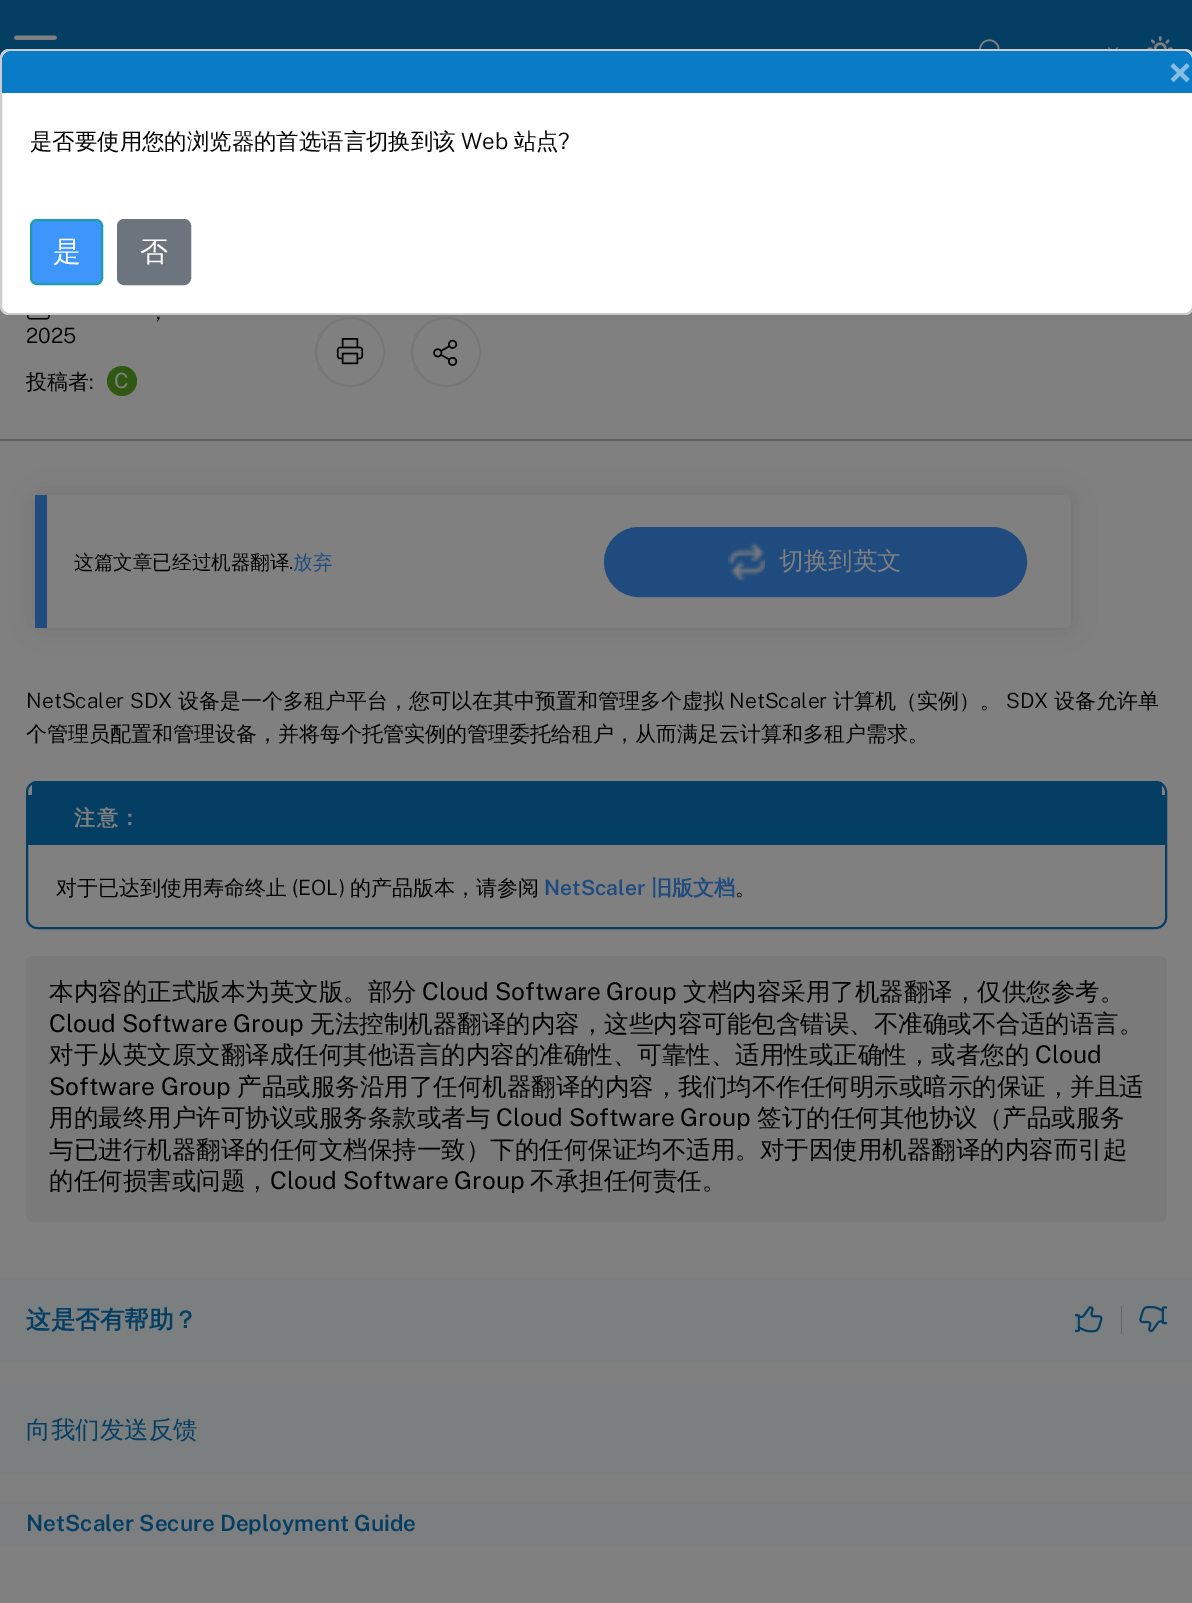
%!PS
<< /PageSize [1192 1603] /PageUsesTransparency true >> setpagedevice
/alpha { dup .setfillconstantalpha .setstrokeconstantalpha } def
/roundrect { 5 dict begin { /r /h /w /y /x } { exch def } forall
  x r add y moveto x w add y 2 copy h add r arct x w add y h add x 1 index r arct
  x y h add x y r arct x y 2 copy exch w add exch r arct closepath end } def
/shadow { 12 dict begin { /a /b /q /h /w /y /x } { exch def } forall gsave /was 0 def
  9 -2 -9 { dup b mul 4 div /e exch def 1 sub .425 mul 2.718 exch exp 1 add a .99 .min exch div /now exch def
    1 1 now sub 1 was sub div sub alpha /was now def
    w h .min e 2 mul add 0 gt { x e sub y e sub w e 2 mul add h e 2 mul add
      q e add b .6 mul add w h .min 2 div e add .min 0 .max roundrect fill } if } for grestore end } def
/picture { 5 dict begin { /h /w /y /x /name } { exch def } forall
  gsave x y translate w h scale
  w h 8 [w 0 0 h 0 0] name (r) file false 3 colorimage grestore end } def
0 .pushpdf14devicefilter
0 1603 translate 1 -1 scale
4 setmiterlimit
0.502 setgray
0 0 1192 1603 rectfill
0.02 0.243 0.388 setrgbcolor
0 0 1192 58 rectfill
(img1.rgb) 14 35 43 5 picture
(img2.rgb) 979 39 21 10 picture
(img3.rgb) 1108 47 10 2 picture
(img4.rgb) 1147 36 26 13 picture
1 setgray
0 49 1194 266 9 roundrect fill
0.2 alpha
0 setgray
2 setlinewidth
1 50 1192 264 8 roundrect stroke
1 alpha
0.039 0.482 0.776 setrgbcolor
newpath 11 51 moveto 1183 51 lineto 1188 51 1192 55 1192 60 curveto 1192 93 lineto 2 93 lineto 2 60 lineto 2 55 6 51 11 51 curveto closepath fill
/PublicSans-Bold [42 0 0 -42 0 0] selectfont
0.522 0.741 0.89 setrgbcolor
1168 88 moveto (×) show
/WenQuanYiZenHei-Medium [22.4 0 0 -22.4 0 0] selectfont
0 setgray
30 149 moveto (是否要使用您的浏览器的首选语言切换到该) show
/PublicSans-Light [22.4 0 0 -22.4 0 0] selectfont
461 149 moveto (Web) show
/WenQuanYiZenHei-Medium [22.4 0 0 -22.4 0 0] selectfont
514 149 moveto (站点) show
/PublicSans-Light [22.4 0 0 -22.4 0 0] selectfont
558 149 moveto (?) show
0.243 0.588 0.988 setrgbcolor
31 220 71 64 6 roundrect gsave fill grestore
0.11 0.612 0.678 setrgbcolor
stroke
/WenQuanYiZenHei-Medium [28 0 0 -28 0 0] selectfont
1 setgray
53 261 moveto (是) show
0.424 0.459 0.49 setrgbcolor
118 220 72 64 6 roundrect gsave fill grestore
stroke
1 setgray
140 261 moveto (否) show
0.373 setgray
0 439 1192 2 rectfill
(img5.rgb) 27 315 23 5 picture
/PublicSans-Light [21 0 0 -21 0 0] selectfont
0 setgray
156 319 moveto (,) show
26 343 moveto (2025) show
/WenQuanYiZenHei-Medium [21 0 0 -21 0 0] selectfont
26 389 moveto (投稿者) show
/PublicSans-Light [21 0 0 -21 0 0] selectfont
89 389 moveto (:) show
0.192 0.345 0.071 setrgbcolor
newpath 122 381 15 0 360 arc closepath fill
/PublicSans-Regular [21 0 0 -21 0 0] selectfont
0.502 setgray
114 388 moveto (C) show
0.07 alpha
0 setgray
newpath 350 352 34 0 360 arc closepath stroke
1 alpha
(img6.rgb) 336 338 28 27 picture
0.07 alpha
newpath 446 352 34 0 360 arc closepath stroke
1 alpha
(img7.rgb) 433 339 25 27 picture
0.486 0.494 0.502 setrgbcolor
0 441 1192 2 rectfill
0 setgray
35 495 1036 133 7 12 0.11 shadow
0.502 setgray
35 495 1036 133 7 roundrect fill
0.122 0.294 0.494 setrgbcolor
35 495 12 133 rectfill
/WenQuanYiZenHei-Medium [19.6 0 0 -19.6 0 0] selectfont
0 setgray
74 569 moveto (这篇文章已经过机器翻译) show
/PublicSans-Light [19.6 0 0 -19.6 0 0] selectfont
289 569 moveto (.) show
/WenQuanYiZenHei-Medium [19.6 0 0 -19.6 0 0] selectfont
0.122 0.294 0.494 setrgbcolor
293 569 moveto (放弃) show
606 529 419 66 33 roundrect gsave fill grestore
4 setlinewidth
stroke
(img8.rgb) 728 541 37 40 picture
/WenQuanYiZenHei-Medium [24.5 0 0 -24.5 0 0] selectfont
0.502 setgray
779 569 moveto (切换到英文) show
/PublicSans-Light [21 0 0 -21 0 0] selectfont
0 setgray
26 708 moveto (NetScaler SDX) show
/WenQuanYiZenHei-Medium [21 0 0 -21 0 0] selectfont
178 708 moveto (设备是一个多租户平台，您可以在其中预置和管理多个虚拟) show
/PublicSans-Light [21 0 0 -21 0 0] selectfont
729 708 moveto (NetScaler) show
/WenQuanYiZenHei-Medium [21 0 0 -21 0 0] selectfont
833 708 moveto (计算机（实例）。) show
/PublicSans-Light [21 0 0 -21 0 0] selectfont
1006 708 moveto (SDX) show
/WenQuanYiZenHei-Medium [21 0 0 -21 0 0] selectfont
1054 708 moveto (设备允许单) show
26 741 moveto (个管理员配置和管理设备，并将每个托管实例的管理委托给租户，从而满足云计算和多租户需求。) show
0.02 0.243 0.388 setrgbcolor
2 setlinewidth
27 782 1139 146 10 roundrect stroke
32 782 1130 13 rectfill
28 795 1137 50 rectfill
/WenQuanYiZenHei-Bold [21 0 0 -21 0 0] selectfont
0.502 setgray
74 825 moveto 1.5 0 (注意：) ashow
/WenQuanYiZenHei-Medium [21 0 0 -21 0 0] selectfont
0 setgray
56 895 moveto (对于已达到使用寿命终止) show
/PublicSans-Light [21 0 0 -21 0 0] selectfont
292 895 moveto (\(EOL\)) show
/WenQuanYiZenHei-Medium [21 0 0 -21 0 0] selectfont
350 895 moveto (的产品版本，请参阅) show
/PublicSans-SemiBold [21 0 0 -21 0 0] selectfont
0.122 0.294 0.494 setrgbcolor
544 895 moveto (NetScaler) show
/WenQuanYiZenHei-Bold [21 0 0 -21 0 0] selectfont
651 895 moveto (旧版文档) show
/WenQuanYiZenHei-Medium [21 0 0 -21 0 0] selectfont
0 setgray
735 895 moveto (。) show
0.478 setgray
26 956 1141 266 7 roundrect fill
/WenQuanYiZenHei-Medium [24.5 0 0 -24.5 0 0] selectfont
0 setgray
49 1000 moveto (本内容的正式版本为英文版。部分) show
/PublicSans-Regular [24.5 0 0 -24.5 0 0] selectfont
422 1000 moveto (Cloud Software Group) show
/WenQuanYiZenHei-Medium [24.5 0 0 -24.5 0 0] selectfont
683 1000 moveto (文档内容采用了机器翻译，仅供您参考。) show
/PublicSans-Regular [24.5 0 0 -24.5 0 0] selectfont
49 1032 moveto (Cloud Software Group) show
/WenQuanYiZenHei-Medium [24.5 0 0 -24.5 0 0] selectfont
310 1032 moveto (无法控制机器翻译的内容，这些内容可能包含错误、不准确或不合适的语言。) show
49 1063 moveto (对于从英文原文翻译成任何其他语言的内容的准确性、可靠性、适用性或正确性，或者您的) show
/PublicSans-Regular [24.5 0 0 -24.5 0 0] selectfont
1035 1063 moveto (Cloud) show
49 1095 moveto (Software Group) show
/WenQuanYiZenHei-Medium [24.5 0 0 -24.5 0 0] selectfont
237 1095 moveto (产品或服务沿用了任何机器翻译的内容，我们均不作任何明示或暗示的保证，并且适) show
49 1126 moveto (用的最终用户许可协议或服务条款或者与) show
/PublicSans-Regular [24.5 0 0 -24.5 0 0] selectfont
496 1126 moveto (Cloud Software Group) show
/WenQuanYiZenHei-Medium [24.5 0 0 -24.5 0 0] selectfont
757 1126 moveto (签订的任何其他协议（产品或服务) show
49 1158 moveto (与已进行机器翻译的任何文档保持一致）下的任何保证均不适用。对于因使用机器翻译的内容而引起) show
49 1189 moveto (的任何损害或问题，) show
/PublicSans-Regular [24.5 0 0 -24.5 0 0] selectfont
270 1189 moveto (Cloud Software Group) show
/WenQuanYiZenHei-Medium [24.5 0 0 -24.5 0 0] selectfont
530 1189 moveto (不承担任何责任。) show
0.486 0.498 0.502 setrgbcolor
0 1278 1192 85 rectfill
/WenQuanYiZenHei-Bold [24.5 0 0 -24.5 0 0] selectfont
0.02 0.243 0.388 setrgbcolor
26 1328 moveto (这是否有帮助？) show
(img9.rgb) 1075 1306 28 27 picture
0.388 0.396 0.4 setrgbcolor
1121 1306 1 28 rectfill
(img10.rgb) 1139 1306 28 27 picture
0.486 0.498 0.502 setrgbcolor
0 1384 1192 91 rectfill
/WenQuanYiZenHei-Medium [24.5 0 0 -24.5 0 0] selectfont
0.02 0.243 0.388 setrgbcolor
26 1438 moveto (向我们发送反馈) show
0.486 0.494 0.502 setrgbcolor
0 1502 1192 43 rectfill
/PublicSans-SemiBold [22.4 0 0 -22.4 0 0] selectfont
0.02 0.243 0.388 setrgbcolor
26 1531 moveto (NetScaler Secure Deployment Guide) show
.poppdf14devicefilter showpage
